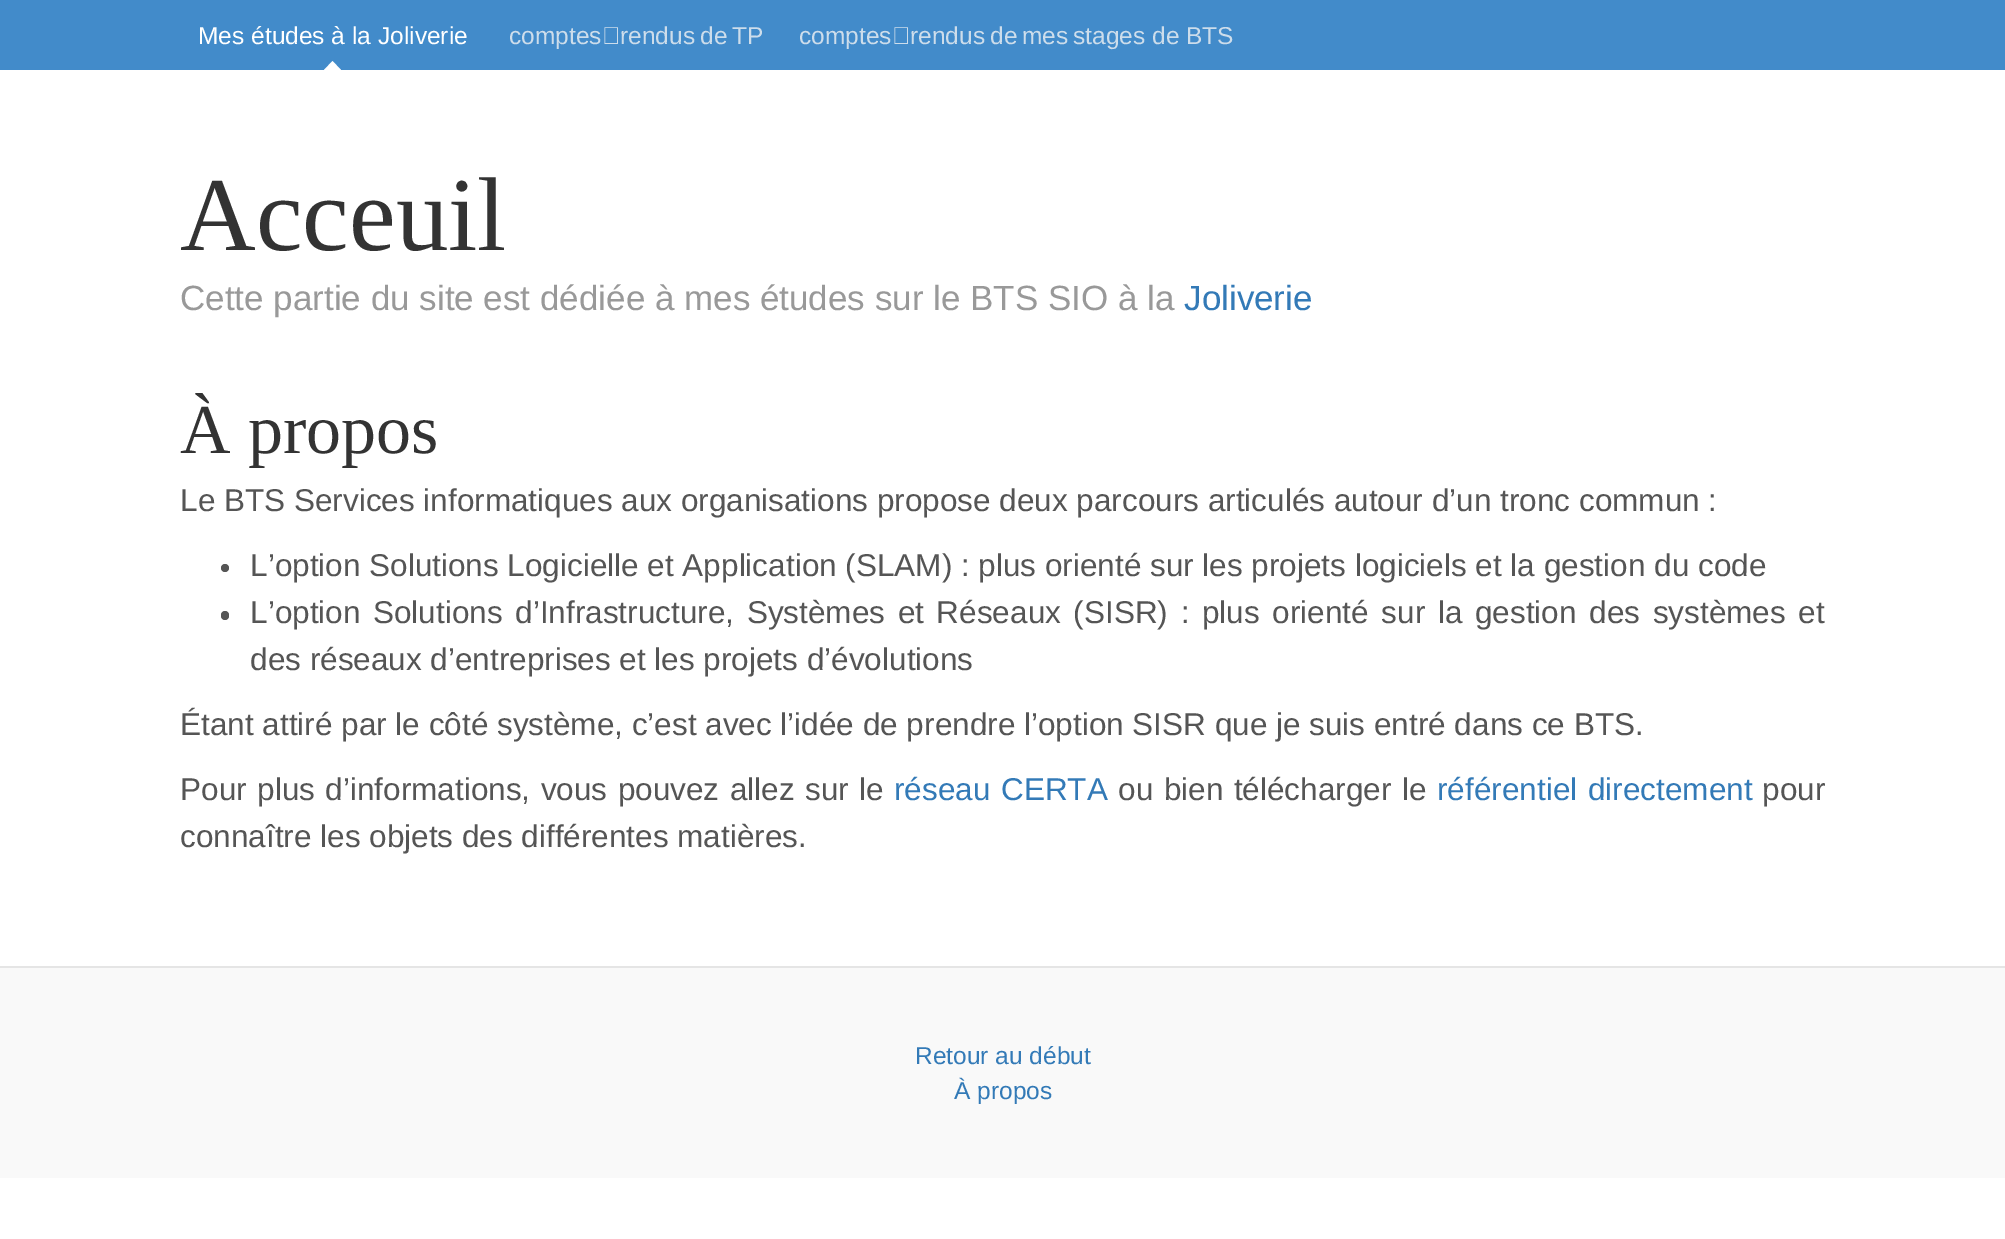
%!PS
<< /PageSize [2005 1239] >> setpagedevice
/roundrect { 5 dict begin { /r /h /w /y /x } { exch def } forall
  x r add y moveto x w add y 2 copy h add r arct x w add y h add x 1 index r arct
  x y h add x y r arct x y 2 copy exch w add exch r arct closepath end } def
0 1239 translate 1 -1 scale
4 setmiterlimit
1 setgray
0 0 2005 1239 rectfill
0.259 0.545 0.792 setrgbcolor
0 0 2005 70 rectfill
/LiberationSans-Regular [24.5 0 0 -24.5 0 0] selectfont
1 setgray
198 44 moveto (Mes études à la Joliverie) show
newpath 341 70 moveto 324 70 lineto 332.5 61 lineto closepath fill
0.804 0.867 0.922 setrgbcolor
509 44 moveto (comptes‑rendus) show
700 44 moveto (de) show
732 44 moveto (TP) show
799 44 moveto (comptes‑rendus) show
990 44 moveto (de) show
1022 44 moveto (mes) show
1073 44 moveto (stages de BTS) show
/LiberationSerif-Regular [105 0 0 -105 0 0] selectfont
0.2 setgray
180 250 moveto (Acceuil) show
/LiberationSans-Regular [35 0 0 -35 0 0] selectfont
0.6 setgray
180 310 moveto (Cette partie du site est dédiée à mes études sur le BTS SIO à la) show
0.2 0.478 0.718 setrgbcolor
1184 310 moveto (Joliverie) show
/LiberationSerif-Regular [70 0 0 -70 0 0] selectfont
0.2 setgray
180 453 moveto (À propos) show
/LiberationSans-Regular [31.5 0 0 -31.5 0 0] selectfont
0.333 setgray
180 511 moveto (Le BTS Services informatiques aux organisations propose deux parcours articulés autour d’un tronc commun :) show
newpath 225 568 4 0 360 arc closepath fill
250 576 moveto (L’option Solutions Logicielle et Application \(SLAM\) : plus orienté sur les projets logiciels et la gestion du code) show
221 611 8 9 4 roundrect fill
250 623 moveto 3.9 0 32 (L’option Solutions d’Infrastructure, Systèmes et Réseaux \(SISR\) : plus orienté sur la gestion des systèmes et) widthshow
250 670 moveto (des réseaux d’entreprises et les projets d’évolutions) show
180 735 moveto (Étant attiré par le côté système, c’est avec l’idée de prendre l’option SISR que je suis entré dans ce BTS.) show
180 800 moveto 1.75 0 32 (Pour plus d’informations, vous pouvez allez sur le) widthshow
0.2 0.478 0.718 setrgbcolor
894 800 moveto 1.75 0 32 (réseau CERTA) widthshow
0.333 setgray
1118 800 moveto 1.75 0 32 (ou bien télécharger le) widthshow
0.2 0.478 0.718 setrgbcolor
1437 800 moveto 2 0 32 (référentiel directement) widthshow
0.333 setgray
1762 800 moveto (pour) show
180 847 moveto (connaître les objets des différentes matières.) show
0.976 setgray
0 968 2005 210 rectfill
0.898 setgray
0 966 2005 2 rectfill
/LiberationSans-Regular [24.5 0 0 -24.5 0 0] selectfont
0.2 0.478 0.718 setrgbcolor
915 1064 moveto (Retour au début) show
954 1099 moveto (À propos) show
showpage
